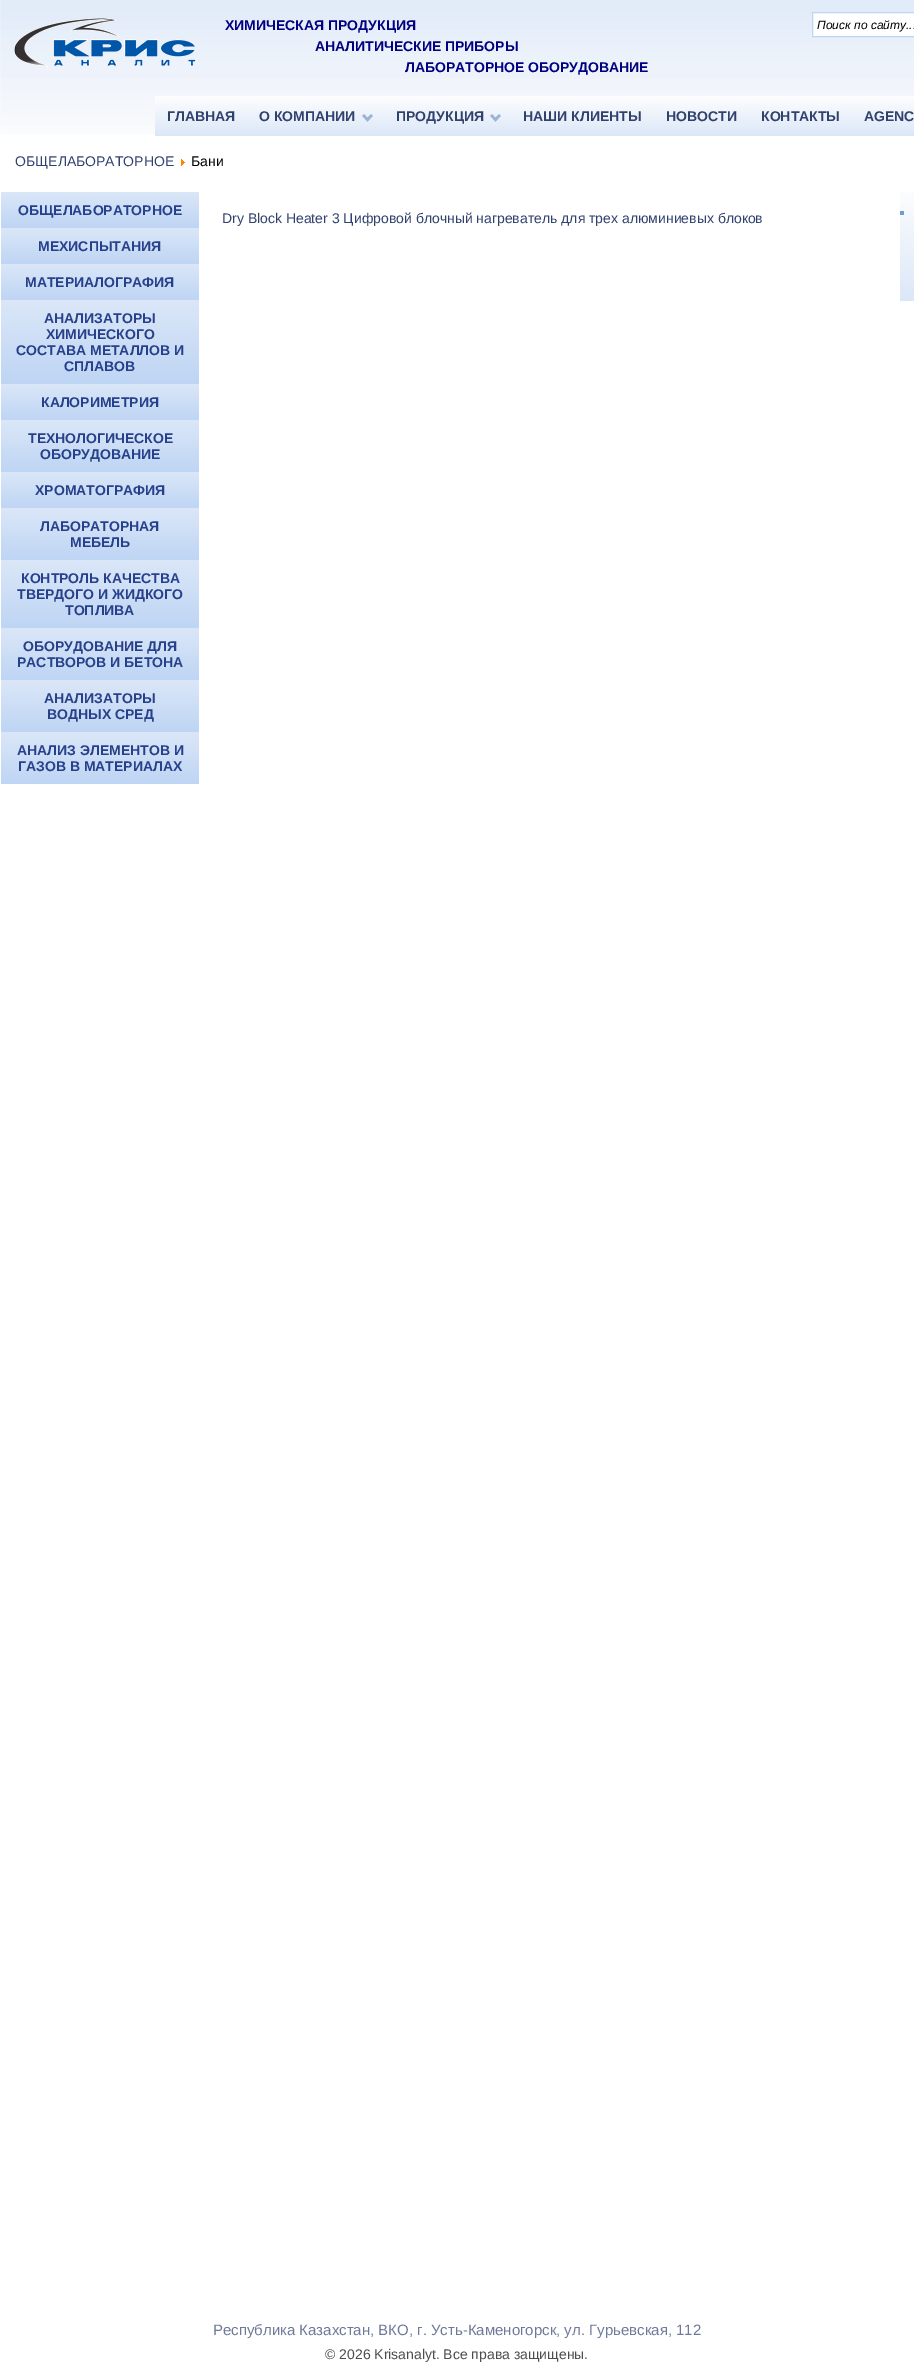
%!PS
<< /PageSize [914 2362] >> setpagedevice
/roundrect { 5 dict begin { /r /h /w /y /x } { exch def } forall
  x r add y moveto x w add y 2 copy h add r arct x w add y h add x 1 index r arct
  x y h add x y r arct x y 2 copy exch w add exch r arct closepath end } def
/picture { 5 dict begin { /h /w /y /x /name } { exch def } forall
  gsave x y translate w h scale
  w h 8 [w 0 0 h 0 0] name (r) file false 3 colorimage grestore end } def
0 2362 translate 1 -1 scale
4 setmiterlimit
1 setgray
0 0 914 2362 rectfill
(img1.rgb) 0 0 914 134 picture
(img2.rgb) 14 18 182 49 picture
/LiberationSans-Bold [14 0 0 -14 0 0] selectfont
0 0 0.502 setrgbcolor
225 30 moveto (ХИМИЧЕСКАЯ ПРОДУКЦИЯ) show
315 51 moveto (АНАЛИТИЧЕСКИЕ ПРИБОРЫ) show
405 72 moveto (ЛАБОРАТОРНОЕ ОБОРУДОВАНИЕ) show
1 setgray
newpath 812.5 12.5 moveto 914.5 12.5 lineto 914.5 36.5 lineto 812.5 36.5 lineto closepath gsave fill grestore
0.745 0.835 0.957 setrgbcolor
stroke
/LiberationSans-Italic [12 0 0 -12 0 0] selectfont
0 setgray
817 29 moveto (Поиск по сайту...) show
gsave 155 96 92 40 3 roundrect clip newpath
<< /ShadingType 2 /ColorSpace /DeviceRGB /Coords [201 96 201 136] /Extend [true true] /Function << /FunctionType 2 /Domain [0 1] /C0 [0.996 0.996 0.996] /C1 [0.859 0.906 0.973] /N 1 >> >> shfill grestore
/LiberationSans-Bold [14 0 0 -14 0 0] selectfont
0.192 0.255 0.431 setrgbcolor
167 121 moveto (ГЛАВНАЯ) show
gsave 247 96 137 40 3 roundrect clip newpath
<< /ShadingType 2 /ColorSpace /DeviceRGB /Coords [316 96 316 136] /Extend [true true] /Function << /FunctionType 2 /Domain [0 1] /C0 [0.996 0.996 0.996] /C1 [0.859 0.906 0.973] /N 1 >> >> shfill grestore
259 121 moveto (О КОМПАНИИ) show
0.608 0.71 0.843 setrgbcolor
newpath 367.5 121.5 moveto 362 116 lineto 364 114 lineto 369.5 119.5 lineto closepath fill
newpath 367.5 121.5 moveto 365.5 119.5 lineto 371 114 lineto 373 116 lineto closepath fill
gsave 384 96 127 40 3 roundrect clip newpath
<< /ShadingType 2 /ColorSpace /DeviceRGB /Coords [448 96 448 136] /Extend [true true] /Function << /FunctionType 2 /Domain [0 1] /C0 [0.996 0.996 0.996] /C1 [0.859 0.906 0.973] /N 1 >> >> shfill grestore
0.192 0.255 0.431 setrgbcolor
396 121 moveto (ПРОДУКЦИЯ) show
0.608 0.71 0.843 setrgbcolor
newpath 495.5 121.5 moveto 490 116 lineto 492 114 lineto 497.5 119.5 lineto closepath fill
newpath 495.5 121.5 moveto 493.5 119.5 lineto 499 114 lineto 501 116 lineto closepath fill
gsave 511 96 143 40 3 roundrect clip newpath
<< /ShadingType 2 /ColorSpace /DeviceRGB /Coords [583 96 583 136] /Extend [true true] /Function << /FunctionType 2 /Domain [0 1] /C0 [0.996 0.996 0.996] /C1 [0.859 0.906 0.973] /N 1 >> >> shfill grestore
0.192 0.255 0.431 setrgbcolor
523 121 moveto (НАШИ КЛИЕНТЫ) show
gsave 654 96 95 40 3 roundrect clip newpath
<< /ShadingType 2 /ColorSpace /DeviceRGB /Coords [702 96 702 136] /Extend [true true] /Function << /FunctionType 2 /Domain [0 1] /C0 [0.996 0.996 0.996] /C1 [0.859 0.906 0.973] /N 1 >> >> shfill grestore
666 121 moveto (НОВОСТИ) show
gsave 749 96 103 40 3 roundrect clip newpath
<< /ShadingType 2 /ColorSpace /DeviceRGB /Coords [801 96 801 136] /Extend [true true] /Function << /FunctionType 2 /Domain [0 1] /C0 [0.996 0.996 0.996] /C1 [0.859 0.906 0.973] /N 1 >> >> shfill grestore
761 121 moveto (КОНТАКТЫ) show
gsave 852 96 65 40 3 roundrect clip newpath
<< /ShadingType 2 /ColorSpace /DeviceRGB /Coords [894 96 894 136] /Extend [true true] /Function << /FunctionType 2 /Domain [0 1] /C0 [0.996 0.996 0.996] /C1 [0.859 0.906 0.973] /N 1 >> >> shfill grestore
864 121 moveto (AGENC) show
/LiberationSans-Regular [14 0 0 -14 0 0] selectfont
15 166 moveto (ОБЩЕЛАБОРАТОРНОЕ) show
(img3.rgb) 181 159 4 7 picture
0 setgray
191 166 moveto (Бани) show
gsave newpath 1 192 moveto 199 192 lineto 199 228 lineto 1 228 lineto closepath clip newpath
<< /ShadingType 2 /ColorSpace /DeviceRGB /Coords [100 192 100 228] /Extend [true true] /Function << /FunctionType 2 /Domain [0 1] /C0 [0.859 0.906 0.973] /C1 [0.745 0.835 0.957] /N 1 >> >> shfill grestore
/LiberationSans-Bold [14 0 0 -14 0 0] selectfont
0.153 0.251 0.545 setrgbcolor
18 215 moveto (ОБЩЕЛАБОРАТОРНОЕ) show
gsave newpath 1 228 moveto 199 228 lineto 199 264 lineto 1 264 lineto closepath clip newpath
<< /ShadingType 2 /ColorSpace /DeviceRGB /Coords [100 228 100 264] /Extend [true true] /Function << /FunctionType 2 /Domain [0 1] /C0 [0.859 0.906 0.973] /C1 [0.745 0.835 0.957] /N 1 >> >> shfill grestore
38 251 moveto (МЕХИСПЫТАНИЯ) show
gsave newpath 1 264 moveto 199 264 lineto 199 300 lineto 1 300 lineto closepath clip newpath
<< /ShadingType 2 /ColorSpace /DeviceRGB /Coords [100 264 100 300] /Extend [true true] /Function << /FunctionType 2 /Domain [0 1] /C0 [0.859 0.906 0.973] /C1 [0.745 0.835 0.957] /N 1 >> >> shfill grestore
25 287 moveto (МАТЕРИАЛОГРАФИЯ) show
gsave newpath 1 300 moveto 199 300 lineto 199 384 lineto 1 384 lineto closepath clip newpath
<< /ShadingType 2 /ColorSpace /DeviceRGB /Coords [100 300 100 384] /Extend [true true] /Function << /FunctionType 2 /Domain [0 1] /C0 [0.859 0.906 0.973] /C1 [0.745 0.835 0.957] /N 1 >> >> shfill grestore
44 323 moveto (АНАЛИЗАТОРЫ) show
46 339 moveto (ХИМИЧЕСКОГО) show
16 355 moveto (СОСТАВА МЕТАЛЛОВ И) show
64 371 moveto (СПЛАВОВ) show
gsave newpath 1 384 moveto 199 384 lineto 199 420 lineto 1 420 lineto closepath clip newpath
<< /ShadingType 2 /ColorSpace /DeviceRGB /Coords [100 384 100 420] /Extend [true true] /Function << /FunctionType 2 /Domain [0 1] /C0 [0.859 0.906 0.973] /C1 [0.745 0.835 0.957] /N 1 >> >> shfill grestore
41 407 moveto (КАЛОРИМЕТРИЯ) show
gsave newpath 1 420 moveto 199 420 lineto 199 472 lineto 1 472 lineto closepath clip newpath
<< /ShadingType 2 /ColorSpace /DeviceRGB /Coords [100 420 100 472] /Extend [true true] /Function << /FunctionType 2 /Domain [0 1] /C0 [0.859 0.906 0.973] /C1 [0.745 0.835 0.957] /N 1 >> >> shfill grestore
28 443 moveto (ТЕХНОЛОГИЧЕСКОЕ) show
40 459 moveto (ОБОРУДОВАНИЕ) show
gsave newpath 1 472 moveto 199 472 lineto 199 508 lineto 1 508 lineto closepath clip newpath
<< /ShadingType 2 /ColorSpace /DeviceRGB /Coords [100 472 100 508] /Extend [true true] /Function << /FunctionType 2 /Domain [0 1] /C0 [0.859 0.906 0.973] /C1 [0.745 0.835 0.957] /N 1 >> >> shfill grestore
35 495 moveto (ХРОМАТОГРАФИЯ) show
gsave newpath 1 508 moveto 199 508 lineto 199 560 lineto 1 560 lineto closepath clip newpath
<< /ShadingType 2 /ColorSpace /DeviceRGB /Coords [100 508 100 560] /Extend [true true] /Function << /FunctionType 2 /Domain [0 1] /C0 [0.859 0.906 0.973] /C1 [0.745 0.835 0.957] /N 1 >> >> shfill grestore
40 531 moveto (ЛАБОРАТОРНАЯ) show
70 547 moveto (МЕБЕЛЬ) show
gsave newpath 1 560 moveto 199 560 lineto 199 628 lineto 1 628 lineto closepath clip newpath
<< /ShadingType 2 /ColorSpace /DeviceRGB /Coords [100 560 100 628] /Extend [true true] /Function << /FunctionType 2 /Domain [0 1] /C0 [0.859 0.906 0.973] /C1 [0.745 0.835 0.957] /N 1 >> >> shfill grestore
21 583 moveto (КОНТРОЛЬ КАЧЕСТВА) show
17 599 moveto (ТВЕРДОГО И ЖИДКОГО) show
65 615 moveto (ТОПЛИВА) show
gsave newpath 1 628 moveto 199 628 lineto 199 680 lineto 1 680 lineto closepath clip newpath
<< /ShadingType 2 /ColorSpace /DeviceRGB /Coords [100 628 100 680] /Extend [true true] /Function << /FunctionType 2 /Domain [0 1] /C0 [0.859 0.906 0.973] /C1 [0.745 0.835 0.957] /N 1 >> >> shfill grestore
23 651 moveto (ОБОРУДОВАНИЕ ДЛЯ) show
17 667 moveto (РАСТВОРОВ И БЕТОНА) show
gsave newpath 1 680 moveto 199 680 lineto 199 732 lineto 1 732 lineto closepath clip newpath
<< /ShadingType 2 /ColorSpace /DeviceRGB /Coords [100 680 100 732] /Extend [true true] /Function << /FunctionType 2 /Domain [0 1] /C0 [0.859 0.906 0.973] /C1 [0.745 0.835 0.957] /N 1 >> >> shfill grestore
44 703 moveto (АНАЛИЗАТОРЫ) show
47 719 moveto (ВОДНЫХ СРЕД) show
gsave newpath 1 732 moveto 199 732 lineto 199 784 lineto 1 784 lineto closepath clip newpath
<< /ShadingType 2 /ColorSpace /DeviceRGB /Coords [100 732 100 784] /Extend [true true] /Function << /FunctionType 2 /Domain [0 1] /C0 [0.859 0.906 0.973] /C1 [0.745 0.835 0.957] /N 1 >> >> shfill grestore
17 755 moveto (АНАЛИЗ ЭЛЕМЕНТОВ И) show
18 771 moveto (ГАЗОВ В МАТЕРИАЛАХ) show
/LiberationSans-Regular [14 0 0 -14 0 0] selectfont
0.192 0.255 0.431 setrgbcolor
222 223 moveto (Dry Block Heater 3 Цифровой блочный нагреватель для трех алюминиевых блоков) show
gsave newpath 900 192 moveto 914 192 lineto 914 301 lineto 900 301 lineto closepath clip newpath
<< /ShadingType 2 /ColorSpace /DeviceRGB /Coords [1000 187 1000 301] /Extend [true true] /Function << /FunctionType 2 /Domain [0 1] /C0 [0.996 0.996 0.996] /C1 [0.859 0.906 0.973] /N 1 >> >> shfill grestore
0.447 0.6 0.847 setrgbcolor
900 211 4 4 rectfill
/LiberationSans-Regular [15 0 0 -15 0 0] selectfont
0.435 0.478 0.604 setrgbcolor
213 2335 moveto (Республика Казахстан, ВКО, г. Усть-Каменогорcк, ул. Гурьевская, 112) show
/LiberationSans-Regular [14 0 0 -14 0 0] selectfont
0.302 setgray
325 2359 moveto (© 2026 Krisanalyt. Все права защищены.) show
showpage
